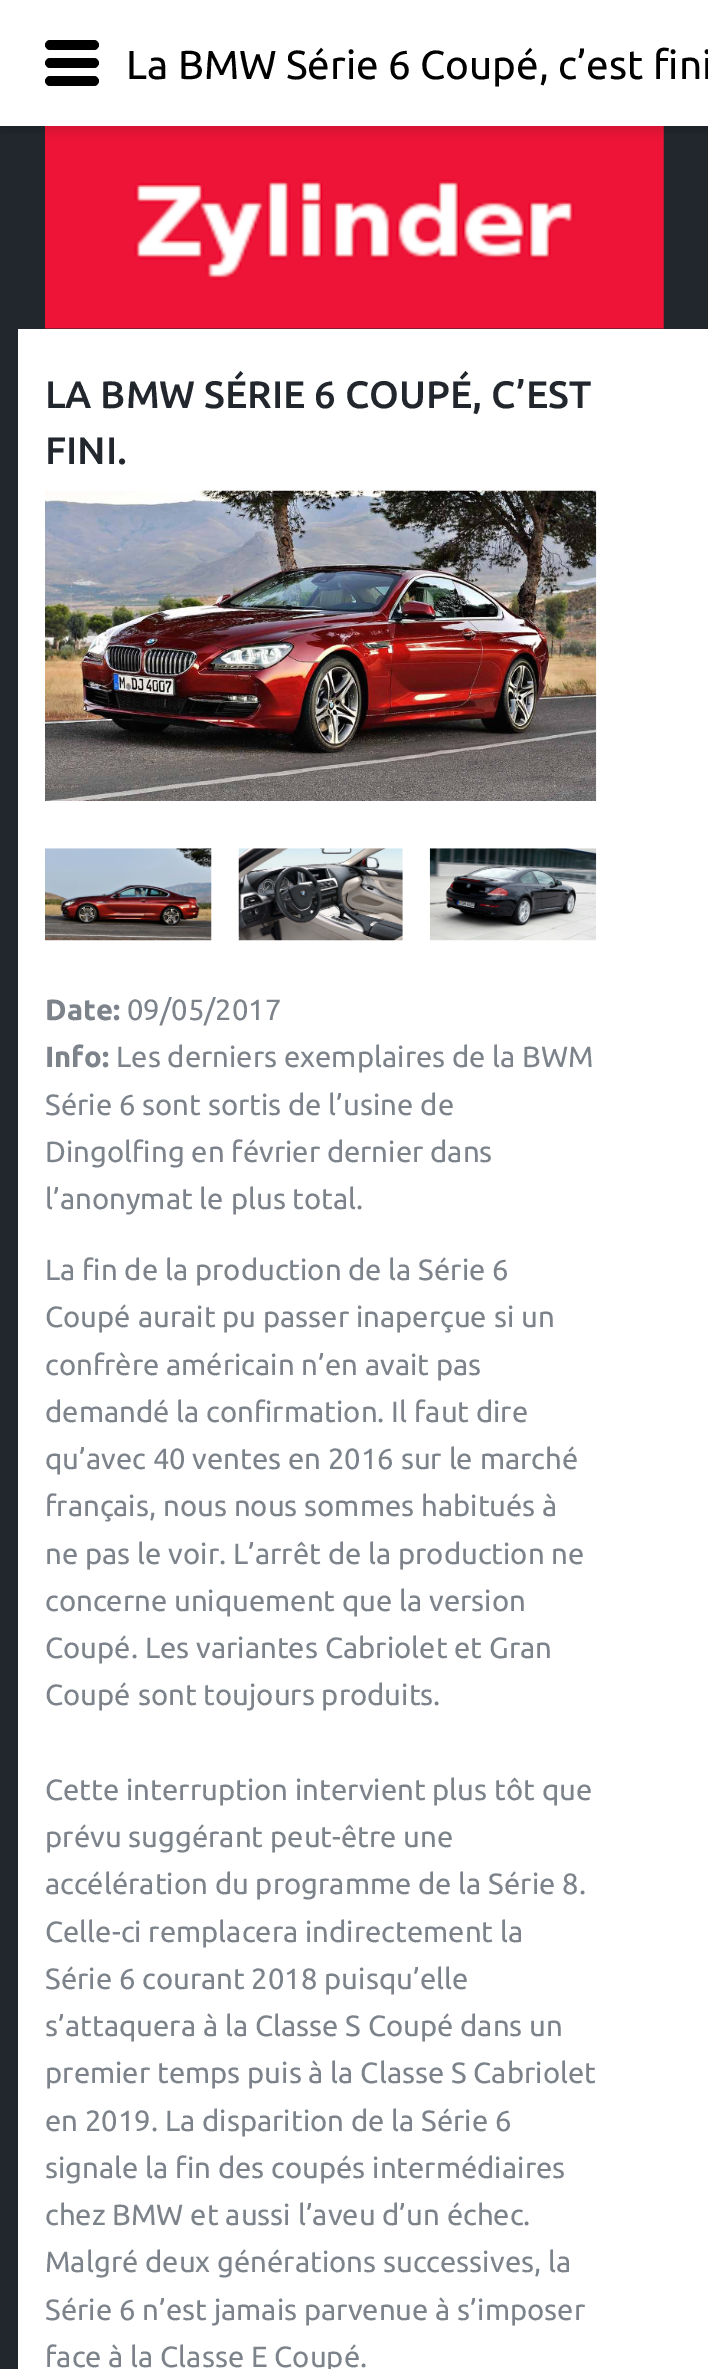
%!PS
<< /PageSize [708 2369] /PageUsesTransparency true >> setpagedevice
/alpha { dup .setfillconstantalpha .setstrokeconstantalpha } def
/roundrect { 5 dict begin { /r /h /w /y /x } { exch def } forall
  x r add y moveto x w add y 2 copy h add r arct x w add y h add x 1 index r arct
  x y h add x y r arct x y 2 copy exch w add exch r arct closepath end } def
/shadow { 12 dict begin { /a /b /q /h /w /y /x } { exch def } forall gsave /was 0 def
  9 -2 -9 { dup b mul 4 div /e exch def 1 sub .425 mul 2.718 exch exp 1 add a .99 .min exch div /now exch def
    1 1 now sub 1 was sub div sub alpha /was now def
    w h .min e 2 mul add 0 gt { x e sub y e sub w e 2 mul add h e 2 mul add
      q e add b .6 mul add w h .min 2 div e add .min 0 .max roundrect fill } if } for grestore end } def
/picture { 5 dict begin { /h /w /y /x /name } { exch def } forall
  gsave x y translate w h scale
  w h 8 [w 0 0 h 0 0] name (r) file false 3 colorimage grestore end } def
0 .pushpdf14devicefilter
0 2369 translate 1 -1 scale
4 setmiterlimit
0.133 0.153 0.18 setrgbcolor
0 0 708 2369 rectfill
(img1.rgb) 45 126 619 203 picture
0 setgray
0 7 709 126 0 3.5 0.1 shadow
1 setgray
0 0 708 126 rectfill
0 setgray
newpath 94 68 moveto 50 68 lineto 47 68 45 65 45 63 curveto 45 61 47 58 50 58 curveto 94 58 lineto 97 58 99 61 99 63 curveto 99 65 97 68 94 68 curveto closepath 94 86 moveto 50 86 lineto 47 86 45 83 45 81 curveto 45 79 47 76 50 76 curveto 94 76 lineto 97 76 99 79 99 81 curveto 99 83 97 86 94 86 curveto closepath 94 50 moveto 50 50 lineto 47 50 45 47 45 45 curveto 45 43 47 40 50 40 curveto 94 40 lineto 97 40 99 43 99 45 curveto 99 47 97 50 94 50 curveto closepath fill
/Ubuntu-Regular [40.5 0 0 -40.5 0 0] selectfont
126 79 moveto (La BMW Série 6 Coupé, c’est fini) show
1 setgray
18 329 690 2040 rectfill
/Ubuntu-Medium [38.25 0 0 -38.25 0 0] selectfont
0.133 0.153 0.18 setrgbcolor
45 408 moveto (LA BMW SÉRIE 6 COUPÉ, C’EST) show
45 464 moveto (FINI.) show
(img2.rgb) 45 490 552 311 picture
(img3.rgb) 45 848 167 93 picture
(img4.rgb) 238 848 165 93 picture
(img5.rgb) 429 848 168 93 picture
/Ubuntu-Bold [29.25 0 0 -29.25 0 0] selectfont
0.49 0.514 0.545 setrgbcolor
45 1020 moveto (Date:) show
/Ubuntu-Regular [29.25 0 0 -29.25 0 0] selectfont
127 1020 moveto (09/05/2017) show
/Ubuntu-Bold [29.25 0 0 -29.25 0 0] selectfont
45 1067 moveto (Info:) show
/Ubuntu-Regular [29.25 0 0 -29.25 0 0] selectfont
116 1067 moveto (Les derniers exemplaires de la BWM) show
45 1115 moveto (Série 6 sont sortis de l’usine de) show
45 1162 moveto (Dingolfing en février dernier dans) show
45 1209 moveto (l’anonymat le plus total.) show
45 1280 moveto (La fin de la production de la Série 6) show
45 1327 moveto (Coupé aurait pu passer inaperçue si un) show
45 1375 moveto (confrère américain n’en avait pas) show
45 1422 moveto (demandé la confirmation. Il faut dire) show
45 1469 moveto (qu’avec 40 ventes en 2016 sur le marché) show
45 1516 moveto (français, nous nous sommes habitués à) show
45 1564 moveto (ne pas le voir. L’arrêt de la production ne) show
45 1611 moveto (concerne uniquement que la version) show
45 1658 moveto (Coupé. Les variantes Cabriolet et Gran) show
45 1705 moveto (Coupé sont toujours produits.) show
45 1800 moveto (Cette interruption intervient plus tôt que) show
45 1847 moveto (prévu suggérant peut-être une) show
45 1894 moveto (accélération du programme de la Série 8.) show
45 1942 moveto (Celle-ci remplacera indirectement la) show
45 1989 moveto (Série 6 courant 2018 puisqu’elle) show
45 2036 moveto (s’attaquera à la Classe S Coupé dans un) show
45 2083 moveto (premier temps puis à la Classe S Cabriolet) show
45 2131 moveto (en 2019. La disparition de la Série 6) show
45 2178 moveto (signale la fin des coupés intermédiaires) show
45 2225 moveto (chez BMW et aussi l’aveu d’un échec.) show
45 2272 moveto (Malgré deux générations successives, la) show
45 2320 moveto (Série 6 n’est jamais parvenue à s’imposer) show
45 2367 moveto (face à la Classe E Coupé.) show
.poppdf14devicefilter showpage
